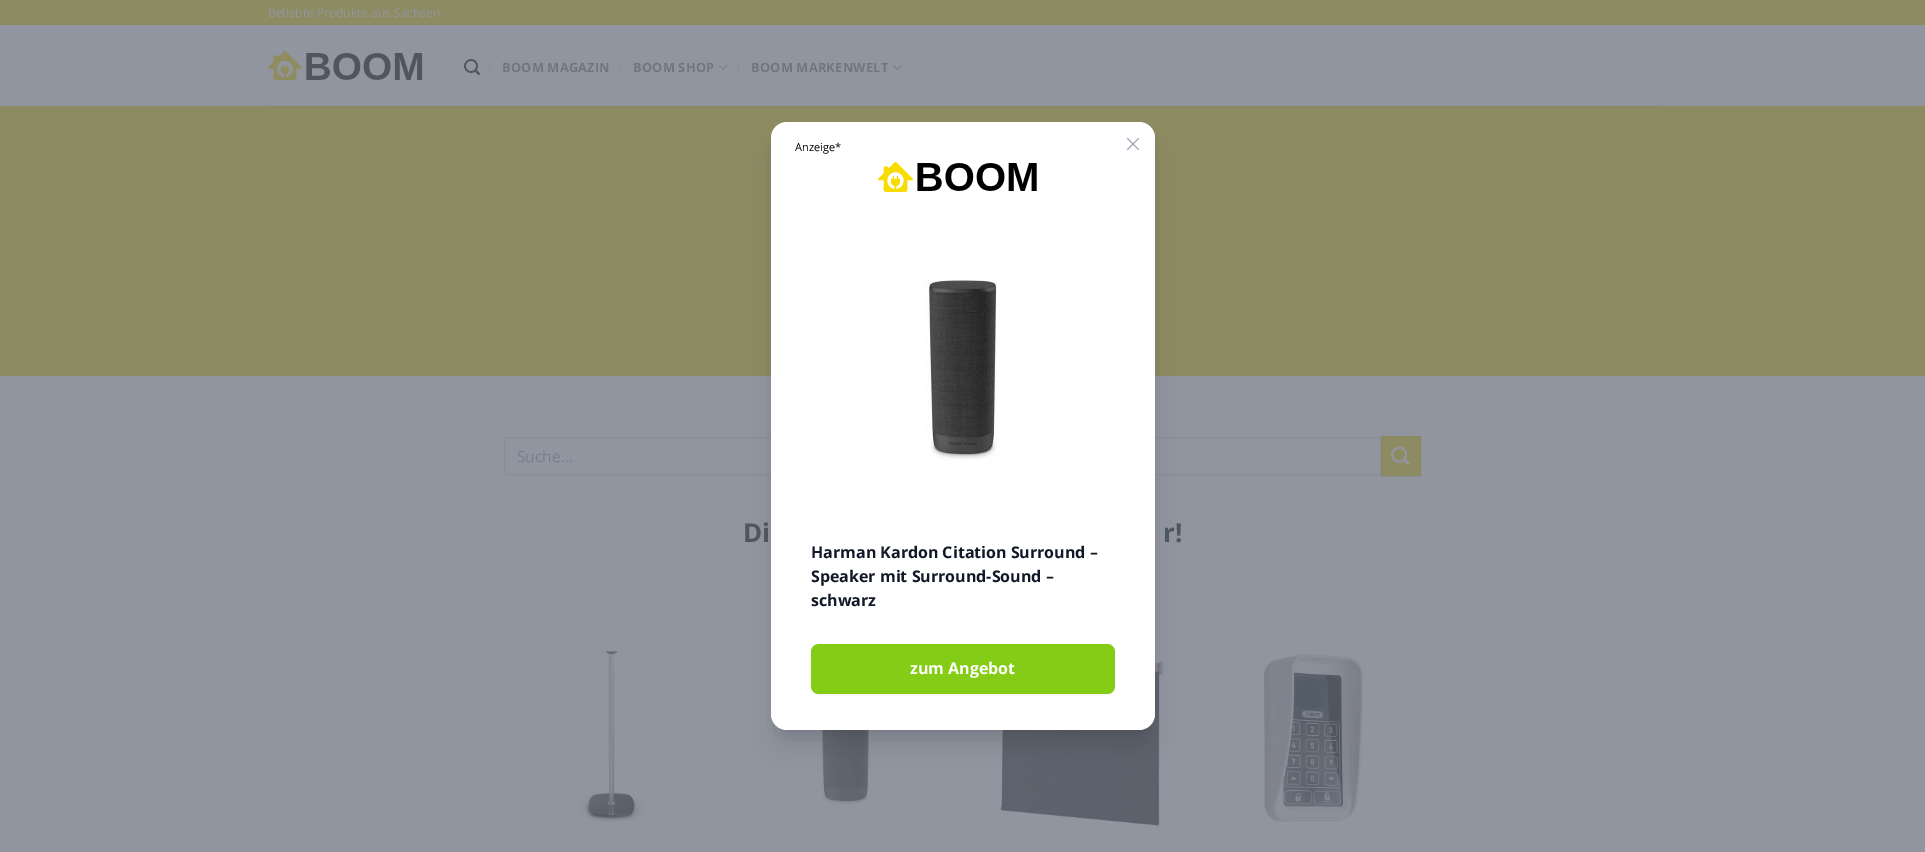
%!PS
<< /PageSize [1925 852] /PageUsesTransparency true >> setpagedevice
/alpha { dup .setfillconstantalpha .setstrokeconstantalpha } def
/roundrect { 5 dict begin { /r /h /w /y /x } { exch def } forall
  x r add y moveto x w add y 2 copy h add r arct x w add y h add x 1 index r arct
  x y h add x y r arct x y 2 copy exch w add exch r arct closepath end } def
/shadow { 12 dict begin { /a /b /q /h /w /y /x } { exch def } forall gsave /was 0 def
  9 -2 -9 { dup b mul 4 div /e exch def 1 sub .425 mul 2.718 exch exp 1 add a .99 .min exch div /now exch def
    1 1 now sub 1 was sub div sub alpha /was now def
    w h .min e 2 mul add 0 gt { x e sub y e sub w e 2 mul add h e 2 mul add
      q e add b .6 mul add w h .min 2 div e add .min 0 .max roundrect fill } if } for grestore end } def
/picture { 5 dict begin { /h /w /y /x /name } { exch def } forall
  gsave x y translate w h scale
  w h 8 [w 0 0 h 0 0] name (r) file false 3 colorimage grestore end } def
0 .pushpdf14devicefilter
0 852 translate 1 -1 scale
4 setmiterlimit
0.565 0.584 0.627 setrgbcolor
0 0 1925 852 rectfill
0.553 0.545 0.38 setrgbcolor
0 0 1925 25 rectfill
/OpenSans-Regular [12 0 0 -12 0 0] selectfont
0.565 0.584 0.627 setrgbcolor
268 17 moveto (Beliebte Produkte aus Sachsen) show
(img1.rgb) 268 51 155 29 picture
(img2.rgb) 464 59 16 16 picture
0.541 0.561 0.604 setrgbcolor
489 61 1 15 rectfill
/OpenSans-Bold [12.75 0 0 -12.75 0 0] selectfont
0.439 0.459 0.498 setrgbcolor
502 72 moveto 0.25 0 (BOOM MAGAZIN) ashow
0.541 0.561 0.604 setrgbcolor
620 61 1 15 rectfill
0.439 0.459 0.498 setrgbcolor
633 72 moveto 0.25 0 (BOOM SHOP) ashow
(img3.rgb) 718 64 10 6 picture
0.541 0.561 0.604 setrgbcolor
738 61 1 15 rectfill
0.439 0.459 0.498 setrgbcolor
751 72 moveto 0.25 0 (BOOM MARKENWELT) ashow
(img3.rgb) 892 64 10 6 picture
0.553 0.545 0.38 setrgbcolor
0 106 1925 270 rectfill
0.529 0.525 0.38 setrgbcolor
268 106 1390 1 rectfill
0.533 0.553 0.592 setrgbcolor
504.5 437.5 876 37 rectstroke
/OpenSans-Regular [15.5 0 0 -15.5 0 0] selectfont
0.467 0.494 0.549 setrgbcolor
517 462 moveto (Suche…) show
0.553 0.545 0.38 setrgbcolor
newpath 1381.5 436.5 moveto 1420.5 436.5 lineto 1420.5 475.5 lineto 1381.5 475.5 lineto closepath gsave fill grestore
0.541 0.533 0.38 setrgbcolor
stroke
(img4.rgb) 1391 446 19 20 picture
/OpenSans-Bold [26 0 0 -26 0 0] selectfont
0.314 0.337 0.376 setrgbcolor
743 542 moveto (Di) show
1163 542 moveto (r!) show
(img5.rgb) 579 648 66 175 picture
(img6.rgb) 818 730 52 75 picture
(img7.rgb) 995 660 172 171 picture
(img8.rgb) 1263 654 100 168 picture
0 setgray
777 136 372 596 10 5 0.1 shadow
776 147 374 598 11 12.5 0.1 shadow
1 setgray
771 122 384 608 16 roundrect fill
/OpenSans-Regular [11 0 0 -11 0 0] selectfont
0 setgray
795 151 moveto (Anzeige*) show
0.612 0.639 0.686 setrgbcolor
0.8 setlinewidth
1 setlinecap
1 setlinejoin
newpath 1127.5 149.5 moveto 1138.5 138.5 lineto 1127.5 138.5 moveto 1138.5 149.5 lineto stroke
(img9.rgb) 878 162 159 30 picture
(img10.rgb) 925 280 72 180 picture
/OpenSans-Bold [16 0 0 -16 0 0] selectfont
0.067 0.094 0.153 setrgbcolor
811 558 moveto (Harman Kardon Citation Surround –) show
811 582 moveto (Speaker mit Surround-Sound –) show
811 606 moveto (schwarz) show
0 setgray
811 645 304 50 8 1 0.05 shadow
0.518 0.8 0.086 setrgbcolor
811 644 304 50 8 roundrect fill
1 setgray
910 674 moveto (zum Angebot) show
.poppdf14devicefilter showpage
